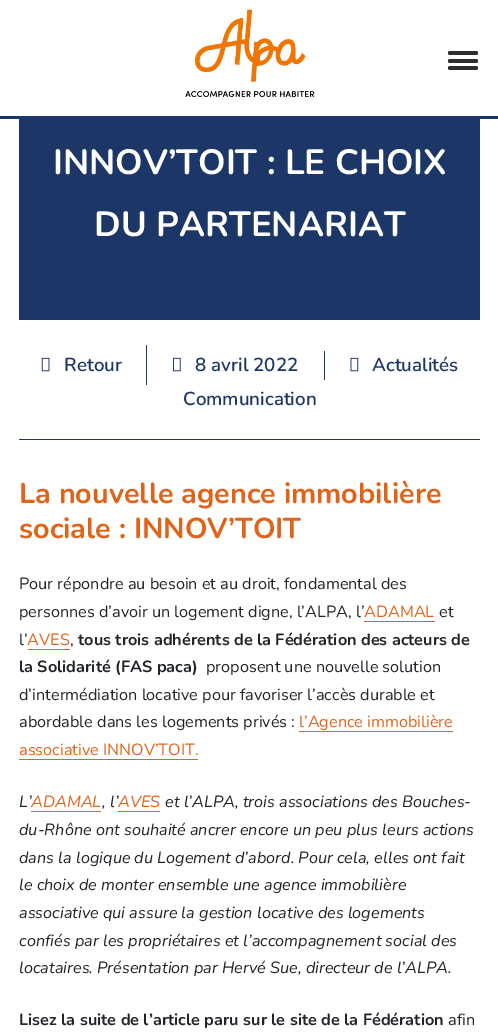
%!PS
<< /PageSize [498 1033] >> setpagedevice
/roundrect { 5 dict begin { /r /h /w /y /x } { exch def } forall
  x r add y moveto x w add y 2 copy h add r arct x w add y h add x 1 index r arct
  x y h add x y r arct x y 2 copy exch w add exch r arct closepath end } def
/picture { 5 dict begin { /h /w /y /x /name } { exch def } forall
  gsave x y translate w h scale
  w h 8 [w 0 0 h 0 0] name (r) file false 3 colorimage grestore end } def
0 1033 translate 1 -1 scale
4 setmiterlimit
1 setgray
0 0 498 1033 rectfill
0.11 0.216 0.404 setrgbcolor
0 116 498 3 rectfill
(img1.rgb) 185 9 130 88 picture
0.18 0.176 0.176 setrgbcolor
448 51 30 4 2 roundrect fill
448 59 30 4 2 roundrect fill
448 66 30 4 2 roundrect fill
0.11 0.216 0.404 setrgbcolor
19 119 461 201 rectfill
/Nunito-Bold [35 0 0 -35 0 0] selectfont
1 setgray
53 174 moveto (INNOV’TOIT : LE CHOIX) show
94 236 moveto (DU PARTENARIAT) show
0.11 0.216 0.404 setrgbcolor
19 439 461 1 rectfill
146 345 1 40 rectfill
(img2.rgb) 41 357 9 15 picture
/Nunito-SemiBold [18.75 0 0 -18.75 0 0] selectfont
64 371 moveto (Retour) show
324 351 1 29 rectfill
(img3.rgb) 173 357 8 15 picture
195 371 moveto (8 avril 2022) show
(img4.rgb) 350 357 9 15 picture
372 371 moveto (Actualités) show
183 405 moveto (Communication) show
/Nunito-Bold [28.75 0 0 -28.75 0 0] selectfont
0.882 0.388 0.102 setrgbcolor
19 503 moveto (La nouvelle agence immobilière) show
19 538 moveto (sociale : INNOV’TOIT) show
/Nunito-Regular [16.25 0 0 -16.25 0 0] selectfont
0.129 0.145 0.161 setrgbcolor
19 589 moveto (Pour répondre au besoin et au droit, fondamental des) show
19 617 moveto (personnes d’avoir un logement digne, l’ALPA, l’) show
0.882 0.388 0.102 setrgbcolor
364 617 moveto (ADAMAL) show
364 621 71 1 rectfill
0.129 0.145 0.161 setrgbcolor
439 617 moveto (et) show
19 645 moveto (l’) show
0.882 0.388 0.102 setrgbcolor
27 645 moveto (AVES) show
28 649 42 1 rectfill
0.129 0.145 0.161 setrgbcolor
70 645 moveto (,) show
/Nunito-Bold [16.25 0 0 -16.25 0 0] selectfont
78 645 moveto (tous trois adhérents de la Fédération des acteurs de) show
19 672 moveto (la Solidarité \(FAS paca\)) show
/Nunito-Regular [16.25 0 0 -16.25 0 0] selectfont
206 672 moveto (proposent une nouvelle solution) show
19 700 moveto (d’intermédiation locative pour favoriser l’accès durable et) show
19 727 moveto (abordable dans les logements privés :) show
0.882 0.388 0.102 setrgbcolor
299 727 moveto (l’Agence immobilière) show
299 731 154 1 rectfill
19 755 moveto (associative INNOV’TOIT.) show
19 759 179 1 rectfill
/Nunito-Italic [16.25 0 0 -16.25 0 0] selectfont
0.129 0.145 0.161 setrgbcolor
19 807 moveto (L’) show
0.882 0.388 0.102 setrgbcolor
31 807 moveto (ADAMAL) show
31 811 70 1 rectfill
0.129 0.145 0.161 setrgbcolor
102 807 moveto (, l’) show
0.882 0.388 0.102 setrgbcolor
118 811 42 1 rectfill
118 807 moveto (AVES) show
0.129 0.145 0.161 setrgbcolor
165 807 moveto (et l’ALPA, trois associations des Bouches-) show
19 835 moveto (du-Rhône ont souhaité ancrer encore un peu plus leurs actions) show
19 863 moveto (dans la logique du Logement d’abord. Pour cela, elles ont fait) show
19 890 moveto (le choix de monter ensemble une agence immobilière) show
19 918 moveto (associative qui assure la gestion locative des logements) show
19 946 moveto (confiés par les propriétaires et l’accompagnement social des) show
19 973 moveto (locataires. Présentation par Hervé Sue, directeur de l’ALPA.) show
/Nunito-Bold [16.25 0 0 -16.25 0 0] selectfont
19 1025 moveto (Lisez la suite de l’article paru sur le site de la Fédération) show
/Nunito-Regular [16.25 0 0 -16.25 0 0] selectfont
448 1025 moveto (afin) show
showpage
